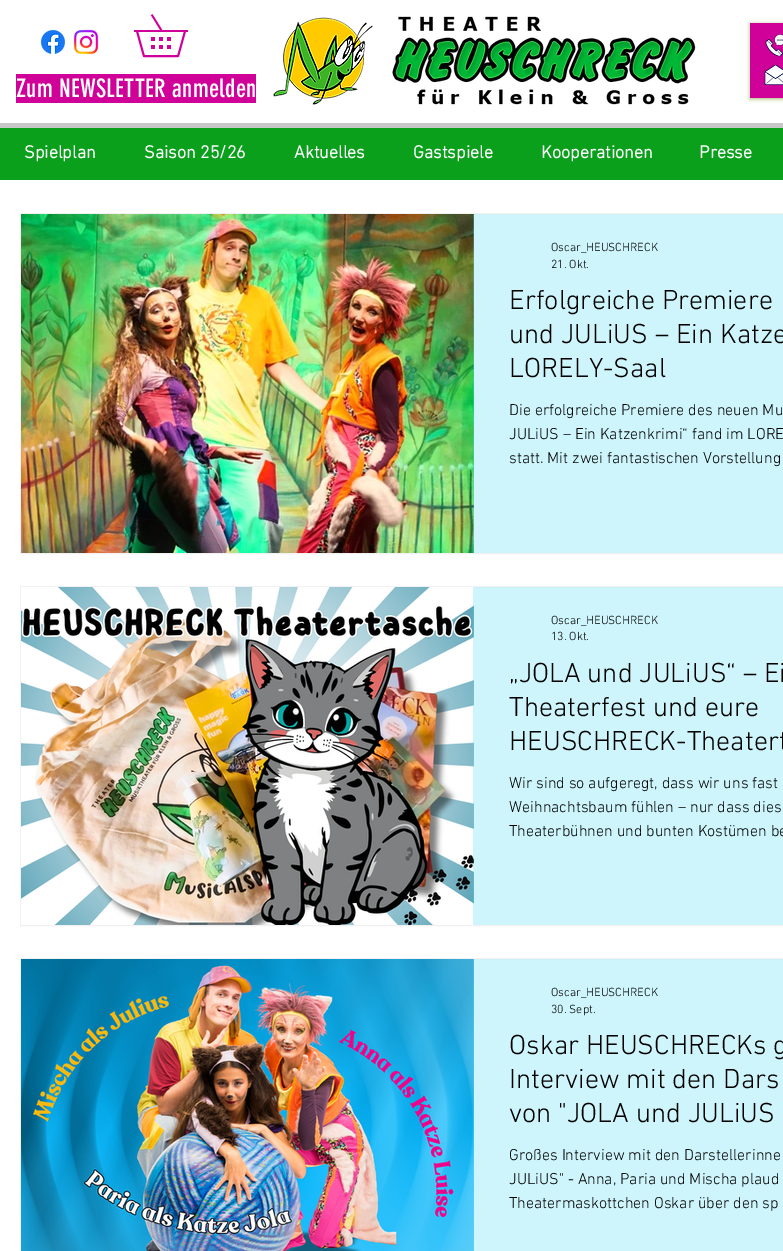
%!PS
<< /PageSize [783 1251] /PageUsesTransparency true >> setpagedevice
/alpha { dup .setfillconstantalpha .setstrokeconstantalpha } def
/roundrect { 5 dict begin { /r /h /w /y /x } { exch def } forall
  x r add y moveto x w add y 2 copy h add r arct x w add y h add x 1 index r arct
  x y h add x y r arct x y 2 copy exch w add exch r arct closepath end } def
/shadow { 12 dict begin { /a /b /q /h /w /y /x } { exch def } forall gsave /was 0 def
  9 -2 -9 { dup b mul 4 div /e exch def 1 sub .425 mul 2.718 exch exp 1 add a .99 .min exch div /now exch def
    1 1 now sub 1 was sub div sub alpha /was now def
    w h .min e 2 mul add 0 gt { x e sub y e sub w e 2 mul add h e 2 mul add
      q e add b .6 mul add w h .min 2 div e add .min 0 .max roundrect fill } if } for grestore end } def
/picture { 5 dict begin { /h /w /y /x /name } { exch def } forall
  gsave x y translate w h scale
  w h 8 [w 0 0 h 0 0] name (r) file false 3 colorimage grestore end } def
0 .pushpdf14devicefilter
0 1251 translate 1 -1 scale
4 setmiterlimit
1 setgray
0 0 783 1251 rectfill
(img1.rgb) 40 29 26 25 picture
(img2.rgb) 73 29 26 26 picture
(img3.rgb) 134 14 54 44 picture
(img4.rgb) 273 16 423 89 picture
0.404 0.522 0.035 setrgbcolor
750 24 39 75 0 2 0.6 shadow
0.812 0.004 0.6 setrgbcolor
750 23 33 75 rectfill
(img5.rgb) 765 34 18 23 picture
(img6.rgb) 764 64 19 22 picture
16 74 240 29 rectfill
/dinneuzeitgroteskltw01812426-Regular [25 0 0 -25 0 0] selectfont
1 setgray
16 97 moveto 0.25 0 (Zum NEWSLETTER anmelden) ashow
0.78 setgray
0 123 783 5 rectfill
0.039 0.627 0.106 setrgbcolor
0 128 783 52 rectfill
/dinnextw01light-Bold [18 0 0 -18 0 0] selectfont
1 setgray
24 158 moveto (Spielplan) show
144 158 moveto (Saison 25/26) show
294 158 moveto (Aktuelles) show
413 158 moveto (Gastspiele) show
541 158 moveto (Kooperationen) show
699 158 moveto (Presse) show
0.949 0.945 0.945 setrgbcolor
20.5 213.5 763 340 rectstroke
(img7.rgb) 21 214 453 339 picture
0.28 alpha
0.306 0.859 0.945 setrgbcolor
473 214 310 339 rectfill
/dinnextw01light-Light [12 0 0 -12 0 0] selectfont
1 alpha
0 setgray
551 251 moveto (Oscar_HEUSCHRECK) show
551 268 moveto (21. Okt.) show
/dinnextw01light-Light [28 0 0 -28 0 0] selectfont
509 309 moveto (Erfolgreiche Premiere) show
509 343 moveto (und JULiUS – Ein Katze) show
509 377 moveto (LORELY-Saal) show
/dinnextw01light-Light [16 0 0 -16 0 0] selectfont
509 415 moveto (Die erfolgreiche Premiere des neuen Mu) show
509 439 moveto (JULiUS – Ein Katzenkrimi“ fand im LORE) show
509 463 moveto (statt. Mit zwei fantastischen Vorstellung) show
0.949 0.945 0.945 setrgbcolor
20.5 586.5 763 339 rectstroke
(img8.rgb) 21 587 453 338 picture
0.28 alpha
0.306 0.859 0.945 setrgbcolor
473 587 310 338 rectfill
/dinnextw01light-Light [12 0 0 -12 0 0] selectfont
1 alpha
0 setgray
551 624 moveto (Oscar_HEUSCHRECK) show
551 640 moveto (13. Okt.) show
/dinnextw01light-Light [28 0 0 -28 0 0] selectfont
509 682 moveto („JOLA und JULiUS“ – Ei) show
509 716 moveto (Theaterfest und eure) show
509 750 moveto (HEUSCHRECK-Theatert) show
/dinnextw01light-Light [16 0 0 -16 0 0] selectfont
509 788 moveto (Wir sind so aufgeregt, dass wir uns fast) show
509 812 moveto (Weihnachtsbaum fühlen – nur dass dies) show
509 836 moveto (Theaterbühnen und bunten Kostümen be) show
0.949 0.945 0.945 setrgbcolor
20.5 958.5 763 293 rectstroke
(img9.rgb) 21 959 453 292 picture
0.28 alpha
0.306 0.859 0.945 setrgbcolor
473 959 310 292 rectfill
/dinnextw01light-Light [12 0 0 -12 0 0] selectfont
1 alpha
0 setgray
551 996 moveto (Oscar_HEUSCHRECK) show
551 1013 moveto (30. Sept.) show
/dinnextw01light-Light [28 0 0 -28 0 0] selectfont
509 1054 moveto (Oskar HEUSCHRECKs g) show
509 1088 moveto (Interview mit den Dars) show
509 1122 moveto (von "JOLA und JULiUS) show
/dinnextw01light-Light [16 0 0 -16 0 0] selectfont
509 1160 moveto (Großes Interview mit den Darstellerinne) show
509 1184 moveto (JULiUS" - Anna, Paria und Mischa plaud) show
509 1208 moveto (Theatermaskottchen Oskar über den sp) show
.poppdf14devicefilter showpage
